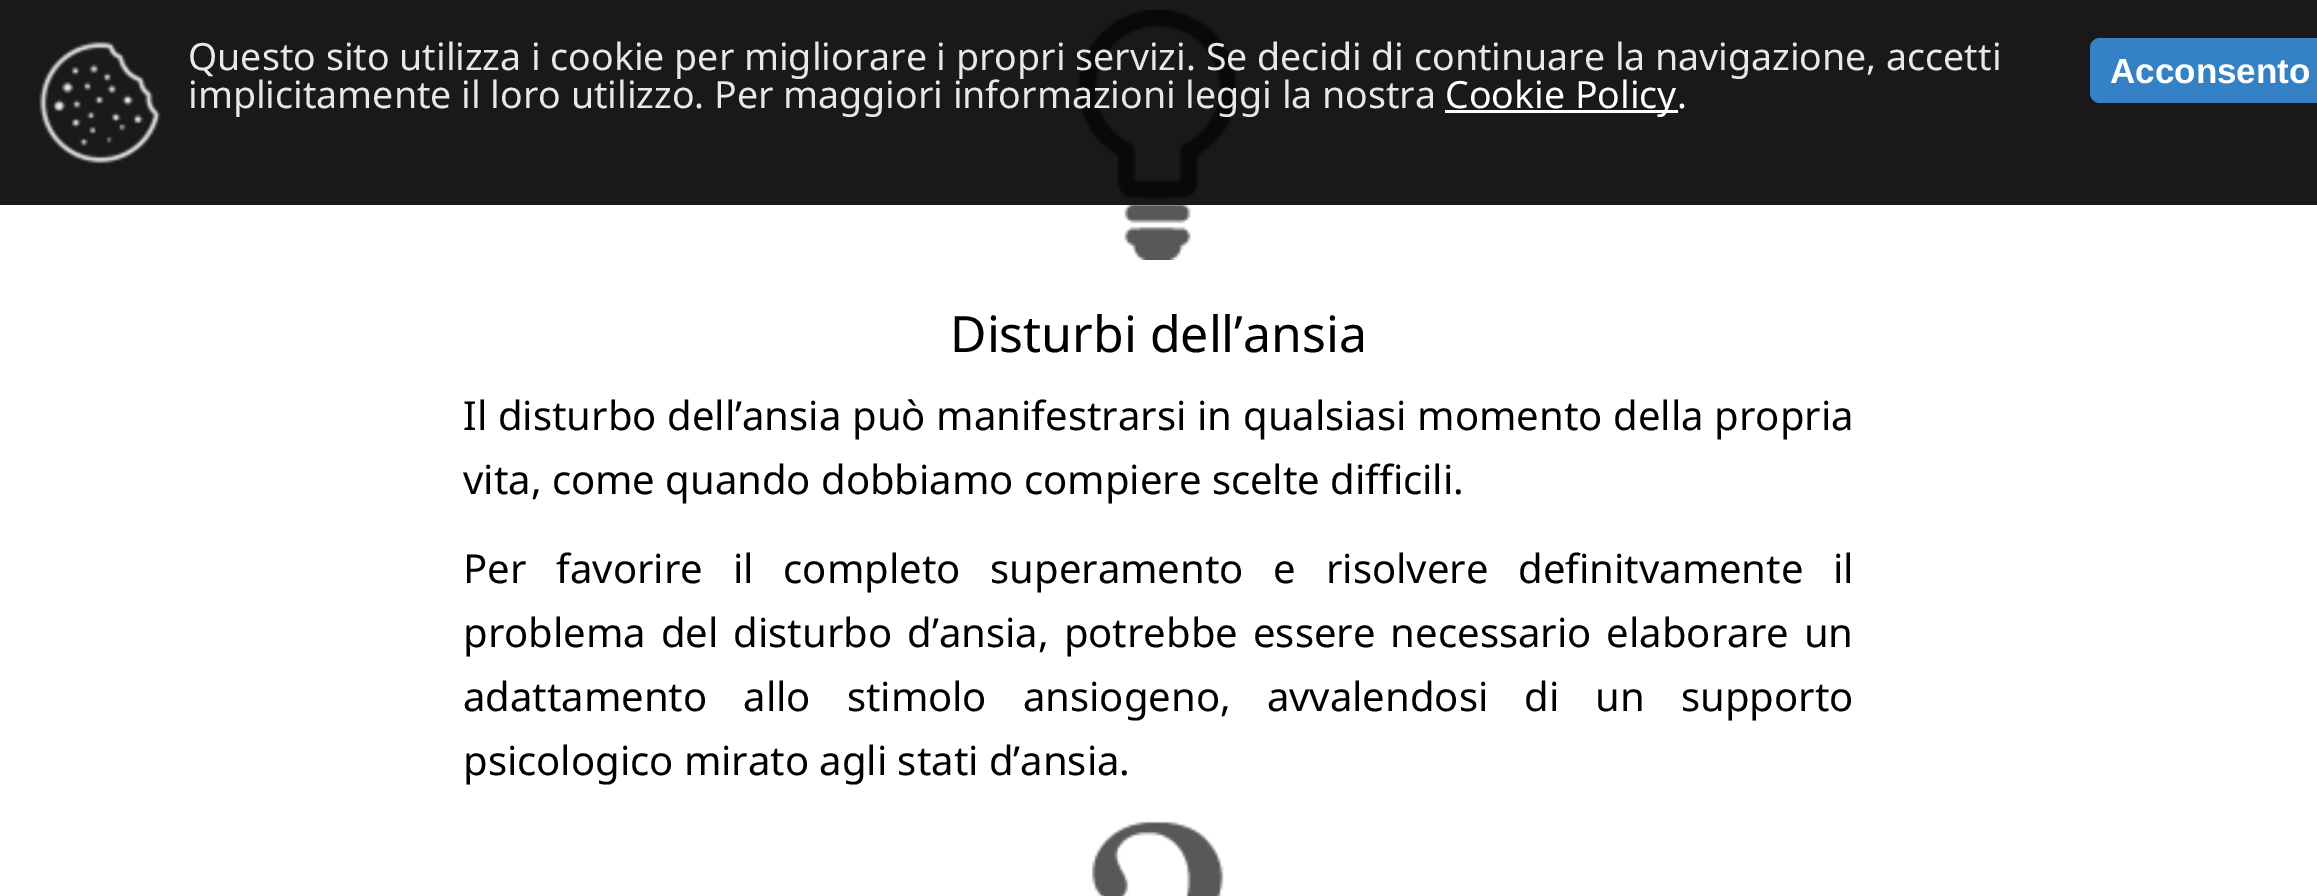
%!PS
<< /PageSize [2317 896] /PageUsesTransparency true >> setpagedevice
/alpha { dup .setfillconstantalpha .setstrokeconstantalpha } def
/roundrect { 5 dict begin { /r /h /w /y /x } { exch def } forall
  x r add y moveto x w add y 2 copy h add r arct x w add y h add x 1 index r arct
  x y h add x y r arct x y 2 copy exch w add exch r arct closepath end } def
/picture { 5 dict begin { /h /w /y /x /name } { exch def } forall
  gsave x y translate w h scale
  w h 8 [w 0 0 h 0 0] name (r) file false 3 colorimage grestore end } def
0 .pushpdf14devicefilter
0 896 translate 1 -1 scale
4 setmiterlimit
1 setgray
0 0 2317 896 rectfill
(img2.rgb) 1076 10 163 250 picture
0.9 alpha
0 setgray
0 0 2317 205 rectfill
/NotoSans-Regular [37.5 0 0 -37.5 0 0] selectfont
1 alpha
0.91 setgray
188 70 moveto (Questo sito utilizza i cookie per migliorare i propri servizi. Se decidi di continuare la navigazione, accetti) show
188 108 moveto (implicitamente il loro utilizzo. Per maggiori informazioni leggi la nostra) show
1 setgray
1445 110 233 3 rectfill
1445 108 moveto (Cookie Policy.) show
(img1.rgb) 39 41 122 123 picture
0.208 0.506 0.773 setrgbcolor
2090 38 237 65 10 roundrect fill
/LiberationSans-Bold [35 0 0 -35 0 0] selectfont
1 setgray
2110 83 moveto (Acconsento) show
/NotoSans-Regular [50 0 0 -50 0 0] selectfont
0 setgray
950 352 moveto (Disturbi dell’ansia) show
/NotoSans-Regular [40 0 0 -40 0 0] selectfont
463 430 moveto 0.5 0 32 (Il disturbo dell’ansia può manifestrarsi in qualsiasi momento della propria) widthshow
463 494 moveto (vita, come quando dobbiamo compiere scelte difficili.) show
463 583 moveto 19.5 0 32 (Per favorire il completo superamento e risolvere definitvamente il) widthshow
463 647 moveto 4.75 0 32 (problema del disturbo d’ansia, potrebbe essere necessario elaborare un) widthshow
463 711 moveto 25.75 0 32 (adattamento allo stimolo ansiogeno, avvalendosi di un supporto) widthshow
463 775 moveto (psicologico mirato agli stati d’ansia.) show
(img3.rgb) 1091 821 133 75 picture
.poppdf14devicefilter showpage
